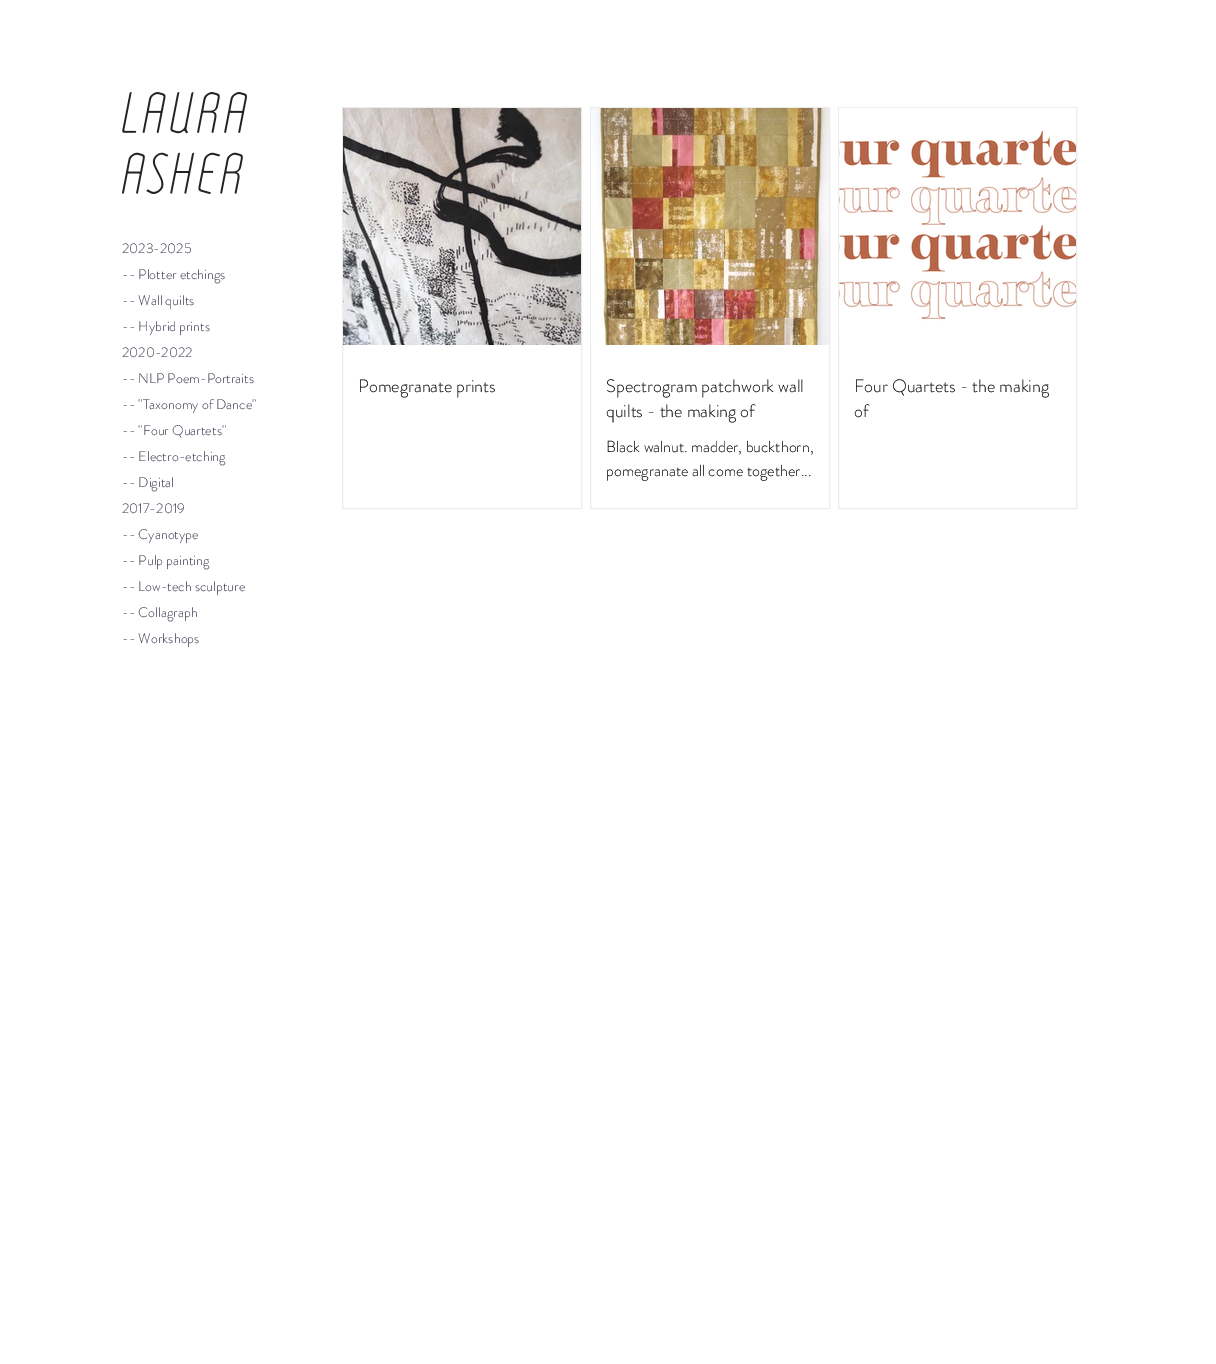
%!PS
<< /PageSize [1216 1364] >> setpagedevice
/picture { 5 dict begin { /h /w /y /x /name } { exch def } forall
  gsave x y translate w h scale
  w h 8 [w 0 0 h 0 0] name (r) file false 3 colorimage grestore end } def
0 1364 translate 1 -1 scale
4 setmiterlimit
1 setgray
0 0 1216 1364 rectfill
(img1.rgb) 122 92 125 102 picture
/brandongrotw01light-Light [14 0 0 -14 0 0] selectfont
0.216 0.231 0.302 setrgbcolor
122 253 moveto (2023-2025) show
122 279 moveto (-- Plotter etchings) show
122 305 moveto (-- Wall quilts) show
122 331 moveto (-- Hybrid prints) show
122 357 moveto (2020-2022) show
122 383 moveto (-- NLP Poem-Portraits) show
122 409 moveto (-- "Taxonomy of Dance") show
122 435 moveto (-- "Four Quartets") show
122 461 moveto (-- Electro-etching) show
122 487 moveto (-- Digital) show
122 513 moveto (2017-2019) show
122 539 moveto (-- Cyanotype) show
122 565 moveto (-- Pulp painting) show
122 591 moveto (-- Low-tech sculpture) show
122 617 moveto (-- Collagraph) show
122 643 moveto (-- Workshops) show
0.925 setgray
342.5 107.5 239 401 rectstroke
(img2.rgb) 343 108 238 237 picture
/brandongrotw01light-Light [18 0 0 -18 0 0] selectfont
0 setgray
358 392 moveto (Pomegranate prints) show
0.925 setgray
590.5 107.5 239 401 rectstroke
(img3.rgb) 591 108 238 237 picture
0 setgray
606 392 moveto (Spectrogram patchwork wall) show
606 417 moveto (quilts - the making of) show
/brandongrotw01light-Light [16 0 0 -16 0 0] selectfont
606 452 moveto (Black walnut. madder, buckthorn,) show
606 476 moveto (pomegranate all come together...) show
0.925 setgray
838.5 107.5 238 401 rectstroke
(img4.rgb) 839 108 237 223 picture
/brandongrotw01light-Light [18 0 0 -18 0 0] selectfont
0 setgray
854 392 moveto (Four Quartets - the making) show
854 417 moveto (of) show
showpage
